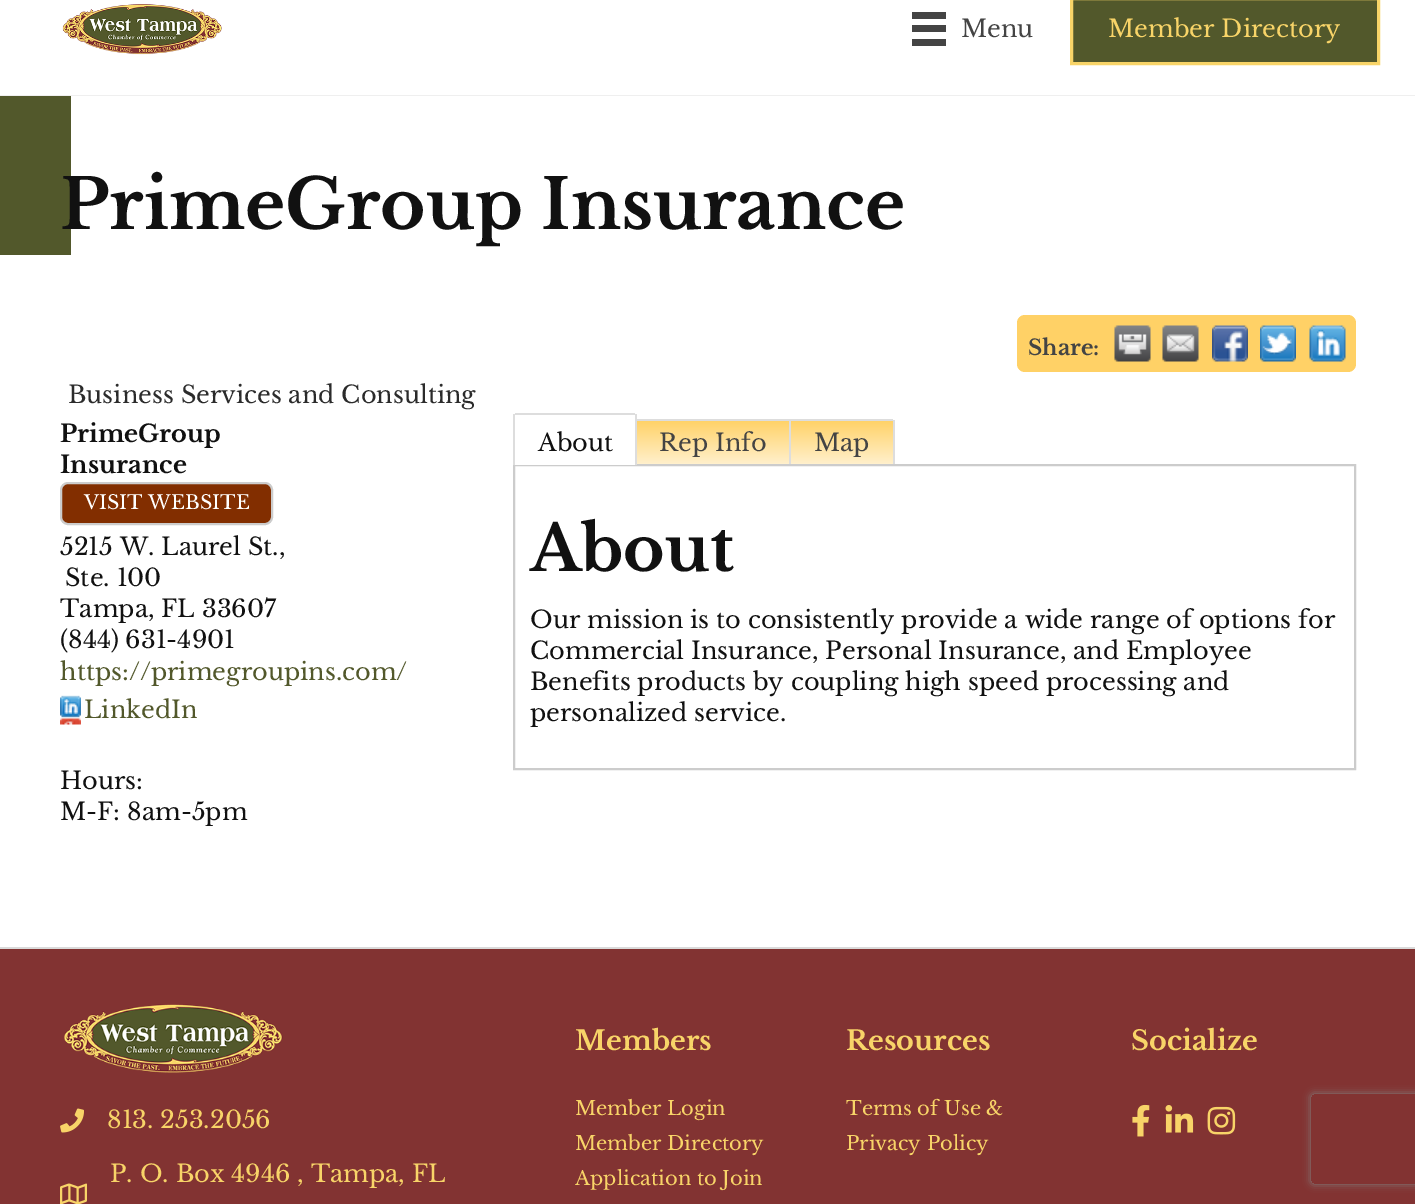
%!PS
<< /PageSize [1415 1204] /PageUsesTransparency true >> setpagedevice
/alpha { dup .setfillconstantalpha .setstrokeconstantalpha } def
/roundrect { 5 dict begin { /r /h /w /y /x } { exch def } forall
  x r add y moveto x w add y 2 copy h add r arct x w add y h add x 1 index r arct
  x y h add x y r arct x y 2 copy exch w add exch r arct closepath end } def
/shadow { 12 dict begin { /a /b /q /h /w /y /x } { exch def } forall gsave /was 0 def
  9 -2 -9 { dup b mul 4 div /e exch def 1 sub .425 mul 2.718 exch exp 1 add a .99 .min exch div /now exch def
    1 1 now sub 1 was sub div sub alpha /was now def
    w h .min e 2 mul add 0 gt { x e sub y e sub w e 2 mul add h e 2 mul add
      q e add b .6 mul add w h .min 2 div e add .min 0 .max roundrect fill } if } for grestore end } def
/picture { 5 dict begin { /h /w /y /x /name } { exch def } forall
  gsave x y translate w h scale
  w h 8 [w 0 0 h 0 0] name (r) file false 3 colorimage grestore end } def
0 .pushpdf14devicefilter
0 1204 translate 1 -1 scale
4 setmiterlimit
1 setgray
0 0 1415 1204 rectfill
0.937 setgray
0 95 1415 1 rectfill
(img1.rgb) 62 4 160 51 picture
0.267 setgray
912 12 34 7 rectfill
912 25 34 7 rectfill
912 39 34 7 rectfill
/LibreBaskerville-Regular [24 0 0 -24 0 0] selectfont
961 37 moveto (Menu) show
0.322 0.345 0.169 setrgbcolor
newpath 1071.5 -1.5 moveto 1378.5 -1.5 lineto 1378.5 63.5 lineto 1071.5 63.5 lineto closepath gsave fill grestore
0.973 0.831 0.408 setrgbcolor
3 setlinewidth
stroke
1108 37 moveto (Member Directory) show
0.322 0.345 0.169 setrgbcolor
0 96 71 159 rectfill
/LibreBaskerville-Bold [69 0 0 -69 0 0] selectfont
0.067 setgray
60 229 moveto (PrimeGroup Insurance) show
1 0.82 0.4 setrgbcolor
1017 315 339 57 8 roundrect fill
/LibreBaskerville-Bold [21.5 0 0 -21.5 0 0] selectfont
0.267 setgray
1028 355 moveto (Share:) show
(img2.rgb) 1114 325 37 37 picture
(img3.rgb) 1162 325 37 37 picture
(img4.rgb) 1212 325 36 37 picture
(img5.rgb) 1260 325 36 37 picture
(img6.rgb) 1309 325 37 37 picture
/LibreBaskerville-Regular [24 0 0 -24 0 0] selectfont
0.169 setgray
68 403 moveto (Business Services and Consulting) show
/LibreBaskerville-Bold [24 0 0 -24 0 0] selectfont
0.067 setgray
60 442 moveto (PrimeGroup) show
60 473 moveto (Insurance) show
0.51 0.18 0 setrgbcolor
61 483 211 41 7 roundrect gsave fill grestore
0.8 setgray
2 setlinewidth
stroke
/LibreBaskerville-Regular [19.25 0 0 -19.25 0 0] selectfont
1 setgray
84 509 moveto (VISIT WEBSITE) show
/LibreBaskerville-Regular [24 0 0 -24 0 0] selectfont
0.067 setgray
60 555 moveto (5215 W. Laurel St.,) show
65 586 moveto (Ste. 100) show
60 617 moveto (Tampa, FL 33607) show
60 648 moveto (\(844\) 631-4901) show
0.322 0.345 0.169 setrgbcolor
60 680 moveto (https://primegroupins.com/) show
(img7.rgb) 60 695 21 30 picture
84 718 moveto (LinkedIn) show
0.067 setgray
60 789 moveto (Hours:) show
60 820 moveto (M-F: 8am-5pm) show
0.8 setgray
514 465 841 304 rectstroke
1 setgray
515 464 120 1 rectfill
0.867 setgray
515 413 120 2 rectfill
636 419 257 2 rectfill
635 414 2 51 rectfill
513 414 2 51 rectfill
0.067 setgray
538 451 moveto (About) show
gsave newpath 637 421 moveto 789 421 lineto 789 464 lineto 637 464 lineto closepath clip newpath
<< /ShadingType 2 /ColorSpace /DeviceRGB /Coords [713 420 713 464] /Extend [true true] /Function << /FunctionType 2 /Domain [0 1] /C0 [1 0.82 0.4] /C1 [1 0.941 0.8] /N 1 >> >> shfill grestore
0.867 setgray
789 419 2 45 rectfill
0.267 setgray
659 451 moveto (Rep Info) show
gsave newpath 791 421 moveto 893 421 lineto 893 464 lineto 791 464 lineto closepath clip newpath
<< /ShadingType 2 /ColorSpace /DeviceRGB /Coords [842 420 842 464] /Extend [true true] /Function << /FunctionType 2 /Domain [0 1] /C0 [1 0.82 0.4] /C1 [1 0.941 0.8] /N 1 >> >> shfill grestore
0.867 setgray
893 420 2 44 rectfill
0.267 setgray
814 451 moveto (Map) show
/LibreBaskerville-Bold [63 0 0 -63 0 0] selectfont
0.067 setgray
530 571 moveto (About) show
/LibreBaskerville-Regular [24 0 0 -24 0 0] selectfont
530 628 moveto (Our mission is to consistently provide a wide range of options for) show
530 659 moveto (Commercial Insurance, Personal Insurance, and Employee) show
530 690 moveto (Benefits products by coupling high speed processing and) show
530 721 moveto (personalized service.) show
0.51 0.2 0.196 setrgbcolor
0 949 1415 255 rectfill
0.855 setgray
0 947 1415 2 rectfill
(img8.rgb) 64 1004 219 69 picture
(img9.rgb) 60 1108 24 25 picture
0.973 0.831 0.408 setrgbcolor
107 1128 moveto (813. 253.2056) show
110 1182 moveto (P. O. Box 4946 , Tampa, FL) show
(img10.rgb) 60 1183 27 21 picture
/LibreBaskerville-Bold [27 0 0 -27 0 0] selectfont
575 1050 moveto (Members) show
/LibreBaskerville-Regular [19.5 0 0 -19.5 0 0] selectfont
575 1115 moveto (Member Login) show
575 1150 moveto (Member Directory) show
575 1185 moveto (Application to Join) show
/LibreBaskerville-Bold [27 0 0 -27 0 0] selectfont
846 1050 moveto (Resources) show
/LibreBaskerville-Regular [19.5 0 0 -19.5 0 0] selectfont
846 1115 moveto (Terms of Use &) show
846 1150 moveto (Privacy Policy) show
/LibreBaskerville-Bold [27 0 0 -27 0 0] selectfont
1131 1050 moveto (Socialize) show
(img11.rgb) 1132 1104 18 33 picture
(img12.rgb) 1165 1105 29 28 picture
(img13.rgb) 1207 1106 29 29 picture
gsave
newpath 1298 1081 moveto 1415 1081 lineto 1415 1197 lineto 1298 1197 lineto closepath 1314 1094 moveto 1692 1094 lineto 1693.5 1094 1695 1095.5 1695 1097 curveto 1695 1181 lineto 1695 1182.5 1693.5 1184 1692 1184 curveto 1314 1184 lineto 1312.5 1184 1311 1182.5 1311 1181 curveto 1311 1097 lineto 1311 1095.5 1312.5 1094 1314 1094 curveto closepath eoclip newpath
0.502 setgray
1311 1094 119 90 3 4 1 shadow
grestore
.poppdf14devicefilter showpage
